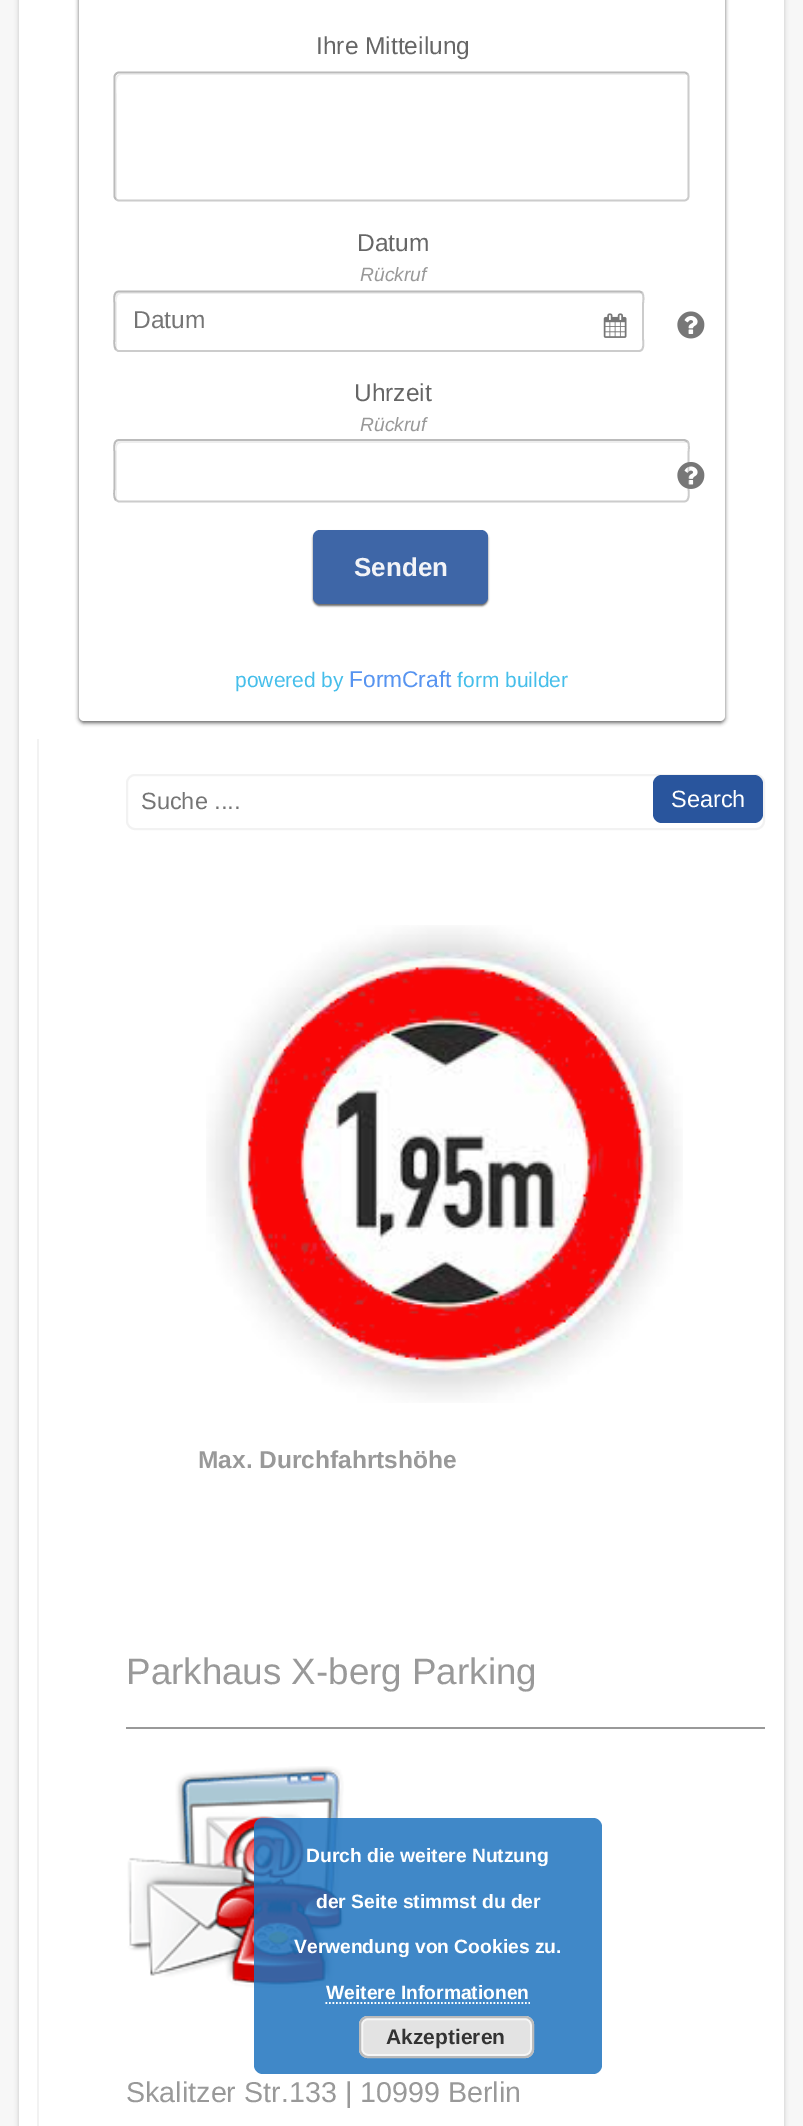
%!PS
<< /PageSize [803 2126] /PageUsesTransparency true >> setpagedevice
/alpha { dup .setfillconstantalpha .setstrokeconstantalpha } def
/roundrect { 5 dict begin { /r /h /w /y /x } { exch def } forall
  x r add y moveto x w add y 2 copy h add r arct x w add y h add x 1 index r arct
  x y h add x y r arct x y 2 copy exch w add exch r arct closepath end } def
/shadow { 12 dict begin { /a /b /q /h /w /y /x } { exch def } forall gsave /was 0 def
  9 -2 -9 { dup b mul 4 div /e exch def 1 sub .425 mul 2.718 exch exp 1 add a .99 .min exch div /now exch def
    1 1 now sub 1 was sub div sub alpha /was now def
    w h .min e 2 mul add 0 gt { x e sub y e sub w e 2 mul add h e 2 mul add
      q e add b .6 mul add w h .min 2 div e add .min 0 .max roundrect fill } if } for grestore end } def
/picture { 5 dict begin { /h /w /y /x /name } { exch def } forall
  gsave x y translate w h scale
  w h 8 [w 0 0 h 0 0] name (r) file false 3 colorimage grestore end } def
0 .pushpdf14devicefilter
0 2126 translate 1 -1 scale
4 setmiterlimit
0.969 setgray
0 0 803 2126 rectfill
0 setgray
19 -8 765 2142 0 2.5 0.2 shadow
1 setgray
19 0 765 2126 rectfill
0.4 setgray
79 -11 646 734 5 2 1 shadow
1 setgray
79 -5 646 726 5 roundrect fill
/LiberationSans-Regular [24.5 0 0 -24.5 0 0] selectfont
0.4 setgray
316 54 moveto (Ihre Mitteilung) show
0.933 setgray
newpath 121 75 moveto 687 75 lineto 686 74 685 74 684 74 curveto 120 74 lineto 118 74 116 76 116 78 curveto 116 196 lineto 116 197 116 198 117 199 curveto 117 99 lineto 117 91 114 75 121 75 curveto closepath fill
0.8 setgray
1.8 setlinewidth
newpath 687.5 74 moveto 688 74.5 688.5 76 688.5 77 curveto 688.5 196 lineto 688.5 197 688 198.5 687.5 199 curveto 686.5 200 685.5 200.5 684 200.5 curveto 119 200.5 lineto 118 200.5 116.5 200 116 199 curveto stroke
0.733 setgray
newpath 116 199 moveto 115 198.5 114.5 197 114.5 196 curveto 114.5 77 lineto 114.5 76 115 74.5 116 74 curveto 116.5 73 118 72.5 119 72.5 curveto 684 72.5 lineto 685.5 72.5 686.5 73 687.5 74 curveto stroke
0.4 setgray
357 251 moveto (Datum) show
/LiberationSans-Italic [19.25 0 0 -19.25 0 0] selectfont
0.6 setgray
360 281 moveto (Rückruf) show
0.933 setgray
newpath 121 294 moveto 640 294 lineto 642 294 lineto 641 293 640 292 638 292 curveto 120 292 lineto 118 292 116 294 116 296 curveto 116 346 lineto 116 347 116 348 117 349 curveto 117 306 lineto 117 304 115 294 121 294 curveto closepath fill
0.8 setgray
newpath 642 292.5 moveto 644.5 295.5 643 302.5 643 304 curveto 643 338 lineto 643 341 645 351 639 351 curveto 118 351 lineto 116 349.5 lineto stroke
0.733 setgray
newpath 116 349.5 moveto 113.5 347 114.5 340 114.5 338 curveto 114.5 304 lineto 114.5 301 112.5 291.5 119 291.5 curveto 639.5 291.5 lineto 642 292.5 lineto stroke
/LiberationSans-Regular [24.5 0 0 -24.5 0 0] selectfont
0.459 setgray
133 328 moveto (Datum) show
(img1.rgb) 603 313 24 25 picture
(img2.rgb) 677 311 28 28 picture
0.4 setgray
354 401 moveto (Uhrzeit) show
/LiberationSans-Italic [19.25 0 0 -19.25 0 0] selectfont
0.6 setgray
360 431 moveto (Rückruf) show
0.933 setgray
newpath 121 443 moveto 688 443 lineto 687 442 686 441 684 441 curveto 120 441 lineto 118 441 116 443 116 445 curveto 116 497 lineto 116 498 116 499 117 500 curveto 117 455 lineto 117 451 115 443 121 443 curveto closepath fill
0.8 setgray
newpath 687.5 441.5 moveto 690 444 688.5 451.5 688.5 453 curveto 688.5 488 lineto 688.5 491.5 690.5 501.5 684 501.5 curveto 118.5 501.5 lineto 116 500 lineto stroke
0.733 setgray
newpath 116 500 moveto 113 497.5 114.5 490 114.5 488 curveto 114.5 453 lineto 114.5 450 112.5 440 119 440 curveto 684.5 440 lineto 687.5 441.5 lineto stroke
(img3.rgb) 677 462 28 27 picture
0.4 setgray
313 532 175 74 7 1 1 shadow
0.243 0.4 0.655 setrgbcolor
313 530 175 74 7 roundrect fill
/LiberationSans-Bold [26 0 0 -26 0 0] selectfont
0.949 0.953 0.969 setrgbcolor
354 576 moveto (Senden) show
/LiberationSans-Regular [21 0 0 -21 0 0] selectfont
0.271 0.745 0.918 setrgbcolor
235 687 moveto (powered by) show
/LiberationSans-Regular [22.75 0 0 -22.75 0 0] selectfont
0.341 0.58 0.941 setrgbcolor
349 687 moveto (FormCraft) show
/LiberationSans-Regular [21 0 0 -21 0 0] selectfont
0.271 0.745 0.918 setrgbcolor
457 687 moveto (form builder) show
0.949 setgray
37 739 2 1387 rectfill
2 setlinewidth
127 775 637 54 8 roundrect stroke
/LiberationSans-Regular [23.5 0 0 -23.5 0 0] selectfont
0.459 setgray
141 809 moveto (Suche ....) show
0.161 0.333 0.616 setrgbcolor
653 775 110 48 9 roundrect fill
1 setgray
671 807 moveto (Search) show
(img4.rgb) 206 925 477 478 picture
/LiberationSans-Bold [24.5 0 0 -24.5 0 0] selectfont
0.6 setgray
198 1468 moveto (Max. Durchfahrtshöhe) show
/LiberationSans-Regular [36.75 0 0 -36.75 0 0] selectfont
126 1684 moveto (Parkhaus X-berg Parking) show
126 1727 639 2 rectfill
(img5.rgb) 127 1766 217 222 picture
/LiberationSans-Regular [28.7 0 0 -28.7 0 0] selectfont
126 2102 moveto (Skalitzer Str.133 | 10999 Berlin) show
0.85 alpha
0.118 0.451 0.745 setrgbcolor
254 1818 348 256 9 roundrect fill
/LiberationSans-Bold [19.25 0 0 -19.25 0 0] selectfont
1 alpha
1 setgray
306 1862 moveto (Durch die weitere Nutzung) show
316 1908 moveto (der Seite stimmst du der) show
294 1953 moveto (Verwendung von Cookies zu.) show
326 1999 moveto (Weitere Informationen) show
1.8 setlinewidth
[1.75 1.75] 0 setdash
newpath 325.5 2003 moveto 530 2003 lineto stroke
0.89 setgray
359 2016 175 42 9 roundrect fill
0.965 setgray
2 setlinewidth
[] 0 setdash
362 2019 169 36 6 roundrect stroke
0.733 setgray
360 2017 173 40 8 roundrect stroke
/LiberationSans-Bold [21 0 0 -21 0 0] selectfont
0.2 setgray
386 2044 moveto (Akzeptieren) show
.poppdf14devicefilter showpage
